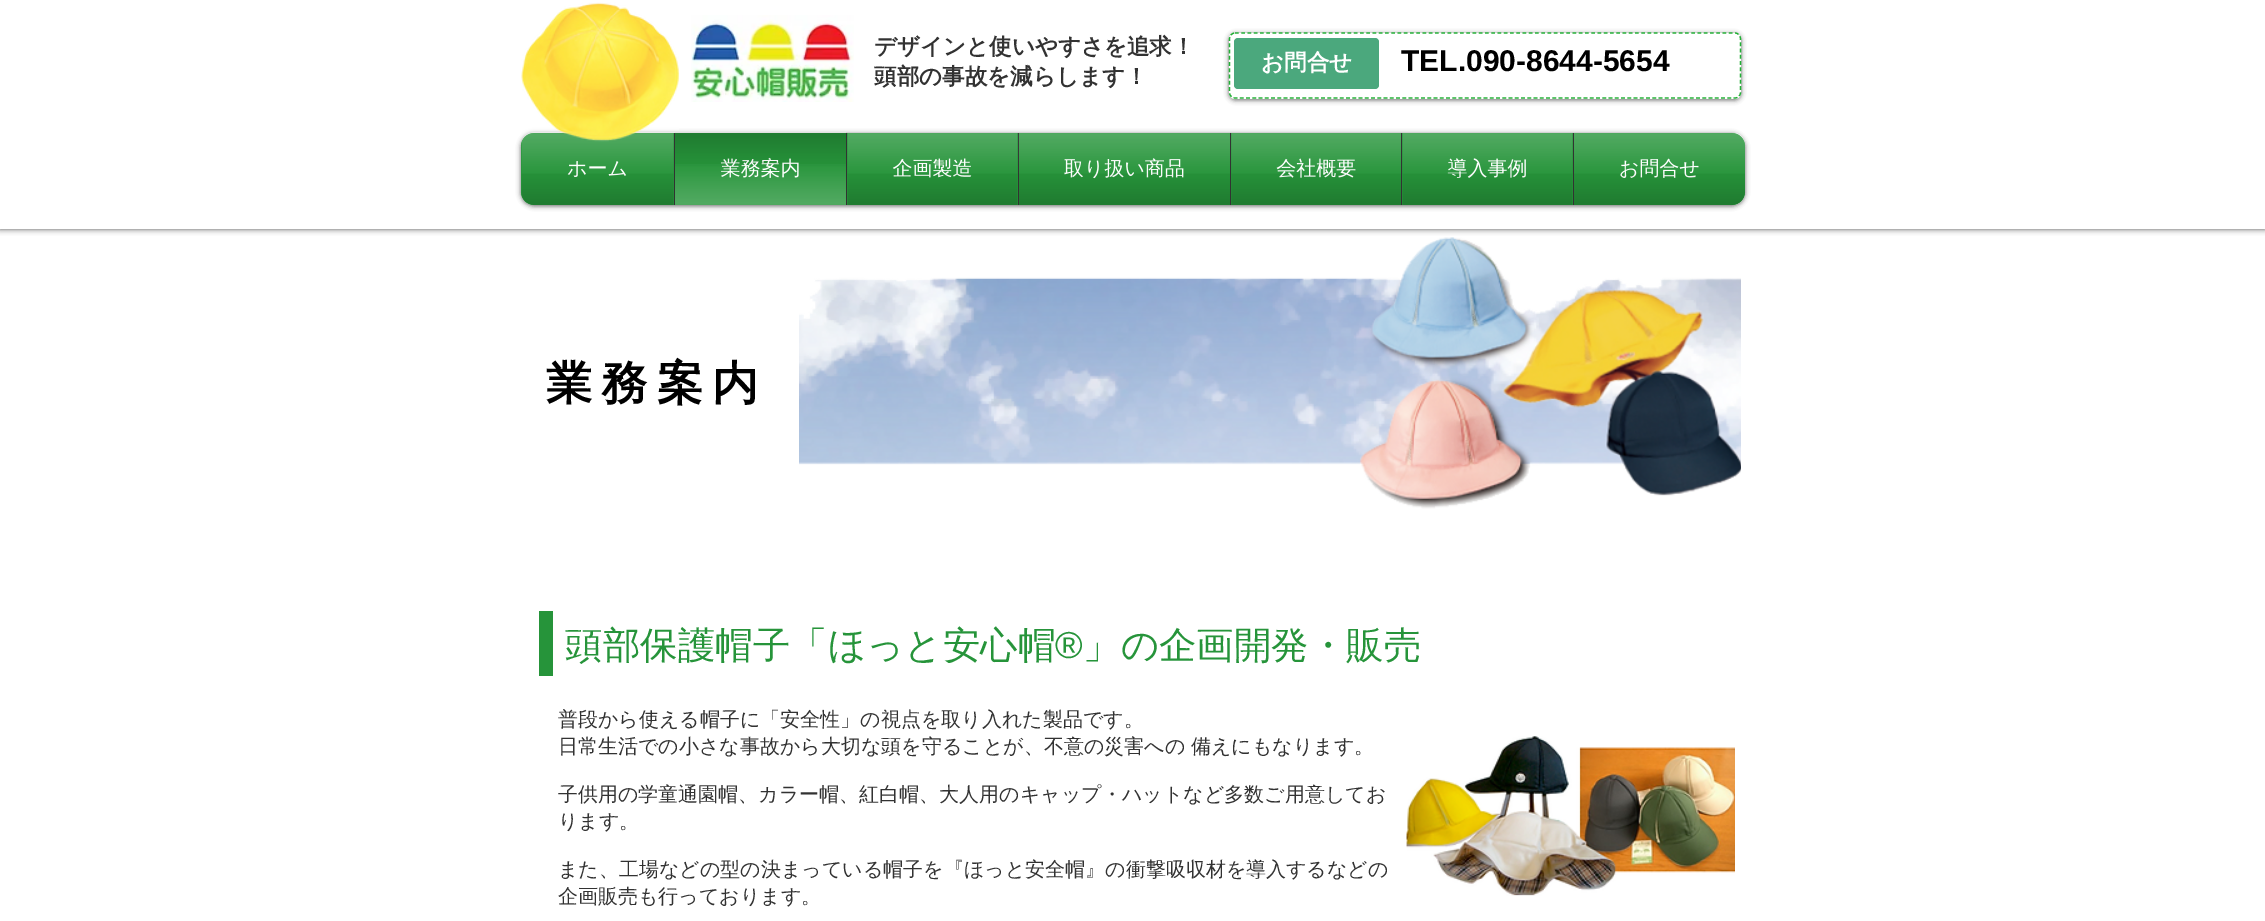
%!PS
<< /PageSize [2265 921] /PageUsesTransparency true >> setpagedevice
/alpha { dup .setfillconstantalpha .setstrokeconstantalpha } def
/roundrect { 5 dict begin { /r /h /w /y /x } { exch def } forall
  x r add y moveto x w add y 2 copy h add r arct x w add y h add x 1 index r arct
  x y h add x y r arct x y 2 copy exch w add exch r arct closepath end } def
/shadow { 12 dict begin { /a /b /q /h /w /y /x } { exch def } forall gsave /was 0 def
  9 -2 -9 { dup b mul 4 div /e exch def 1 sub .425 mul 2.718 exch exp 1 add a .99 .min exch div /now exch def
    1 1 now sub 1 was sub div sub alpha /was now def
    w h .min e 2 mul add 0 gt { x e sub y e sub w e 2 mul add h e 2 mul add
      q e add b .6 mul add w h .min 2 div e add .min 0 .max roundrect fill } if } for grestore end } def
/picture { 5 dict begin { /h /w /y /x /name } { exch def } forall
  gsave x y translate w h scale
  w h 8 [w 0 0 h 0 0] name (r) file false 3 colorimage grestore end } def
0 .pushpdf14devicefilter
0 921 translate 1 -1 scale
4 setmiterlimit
1 setgray
0 0 2265 921 rectfill
0 setgray
0 0 2265 229 0 3 0.7 shadow
1 setgray
0 0 2265 229 rectfill
0 setgray
521 134 1224 72 13 2.5 0.6 shadow
(img3.rgb) 521 133 1224 13 picture
(img4.rgb) 521 192 1224 13 picture
0.149 0.58 0.227 setrgbcolor
newpath 534 133 moveto 674 133 lineto 674 205 lineto 534 205 lineto 527 205 521 199 521 192 curveto 521 146 lineto 521 139 527 133 534 133 curveto closepath fill
/WenQuanYiZenHei-Medium [20 0 0 -20 0 0] selectfont
1 setgray
567 175 moveto (ホーム) show
(img5.rgb) 521 133 153 40 picture
0.149 0.58 0.227 setrgbcolor
675 133 171 72 rectfill
0.196 setgray
674 133 1 72 rectfill
1 setgray
721 175 moveto (業務案内) show
(img7.rgb) 675 132 171 32 picture
(img1.rgb) 521 2 158 140 picture
(img2.rgb) 691 15 163 87 picture
/WenQuanYiZenHei-Bold [22.5 0 0 -22.5 0 0] selectfont
0.196 setgray
874 54 moveto (デザインと使いやすさを追求！) show
874 84 moveto (頭部の事故を減らします！) show
0 setgray
1229 34 512 66 6 2.5 0.6 shadow
1 setgray
1229 33 512 66 6 roundrect fill
0.133 0.686 0.208 setrgbcolor
1.2 setlinewidth
[3.75 2.5] 0 setdash
newpath 1235 33 moveto 1735 33 lineto 1738 33 1740.5 35.5 1740.5 39 curveto 1740.5 92.5 lineto 1740.5 95.5 1738 98 1735 98 curveto 1235 98 lineto 1232 98 1229.5 95.5 1229.5 92.5 curveto 1229.5 39 lineto 1229.5 35.5 1232 33 1235 33 curveto closepath stroke
0.294 0.659 0.49 setrgbcolor
1234 38 145 51 4 roundrect fill
1 setgray
1261 70 moveto (お問合せ) show
/LiberationSans-Bold [30 0 0 -30 0 0] selectfont
0 setgray
1401 71 moveto (TEL.090-8644-5654) show
(img6.rgb) 521 173 153 32 picture
(img8.rgb) 675 164 171 41 picture
0.149 0.58 0.227 setrgbcolor
847 133 171 72 rectfill
0.196 setgray
846 133 1 72 rectfill
/WenQuanYiZenHei-Medium [20 0 0 -20 0 0] selectfont
1 setgray
893 175 moveto (企画製造) show
(img9.rgb) 847 133 171 40 picture
(img10.rgb) 847 173 171 32 picture
0.149 0.58 0.227 setrgbcolor
1019 133 211 72 rectfill
0.196 setgray
1018 133 1 72 rectfill
1 setgray
1064 175 moveto (取り扱い商品) show
(img11.rgb) 1018 133 212 40 picture
(img12.rgb) 1019 173 211 32 picture
0.149 0.58 0.227 setrgbcolor
1231 133 170 72 rectfill
0.196 setgray
1230 133 1 72 rectfill
1 setgray
1276 175 moveto (会社概要) show
(img13.rgb) 1231 133 170 40 picture
(img14.rgb) 1231 173 170 32 picture
0.149 0.58 0.227 setrgbcolor
1402 133 171 72 rectfill
0.196 setgray
1401 133 1 72 rectfill
1 setgray
1448 175 moveto (導入事例) show
(img15.rgb) 1402 133 171 40 picture
(img16.rgb) 1402 173 171 32 picture
0.149 0.58 0.227 setrgbcolor
newpath 1573 133 moveto 1732 133 lineto 1739 133 1745 139 1745 146 curveto 1745 192 lineto 1745 199 1739 205 1732 205 curveto 1573 205 lineto closepath fill
0.196 setgray
1573 133 1 72 rectfill
1 setgray
1619 175 moveto (お問合せ) show
(img17.rgb) 1574 133 171 40 picture
(img18.rgb) 1574 173 171 32 picture
/WenQuanYiZenHei-Bold [46.25 0 0 -46.25 0 0] selectfont
0 setgray
546 399 moveto 9 0 (業務案内) ashow
(img19.rgb) 799 237 942 272 picture
0.149 0.58 0.227 setrgbcolor
539 611 14 65 rectfill
/WenQuanYiZenHei-Medium [37.5 0 0 -37.5 0 0] selectfont
565 658 moveto (頭部保護帽子「ほっと安心帽) show
/LiberationSans-Regular [37.5 0 0 -37.5 0 0] selectfont
1055 658 moveto (®) show
/WenQuanYiZenHei-Medium [37.5 0 0 -37.5 0 0] selectfont
1083 658 moveto (」の企画開発・販売) show
/WenQuanYiZenHei-Medium [20 0 0 -20 0 0] selectfont
0.196 setgray
558 726 moveto (普段から使える帽子に「安全性」の視点を取り入れた製品です。) show
558 753 moveto (日常生活での小さな事故から大切な頭を守ることが、不意の災害への 備えにもなります。) show
558 801 moveto (子供用の学童通園帽、カラー帽、紅白帽、大人用のキャップ・ハットなど多数ご用意してお) show
558 828 moveto (ります。) show
558 876 moveto (また、工場などの型の決まっている帽子を『ほっと安全帽』の衝撃吸収材を導入するなどの) show
558 903 moveto (企画販売も行っております。) show
(img20.rgb) 1406 736 329 160 picture
.poppdf14devicefilter showpage
